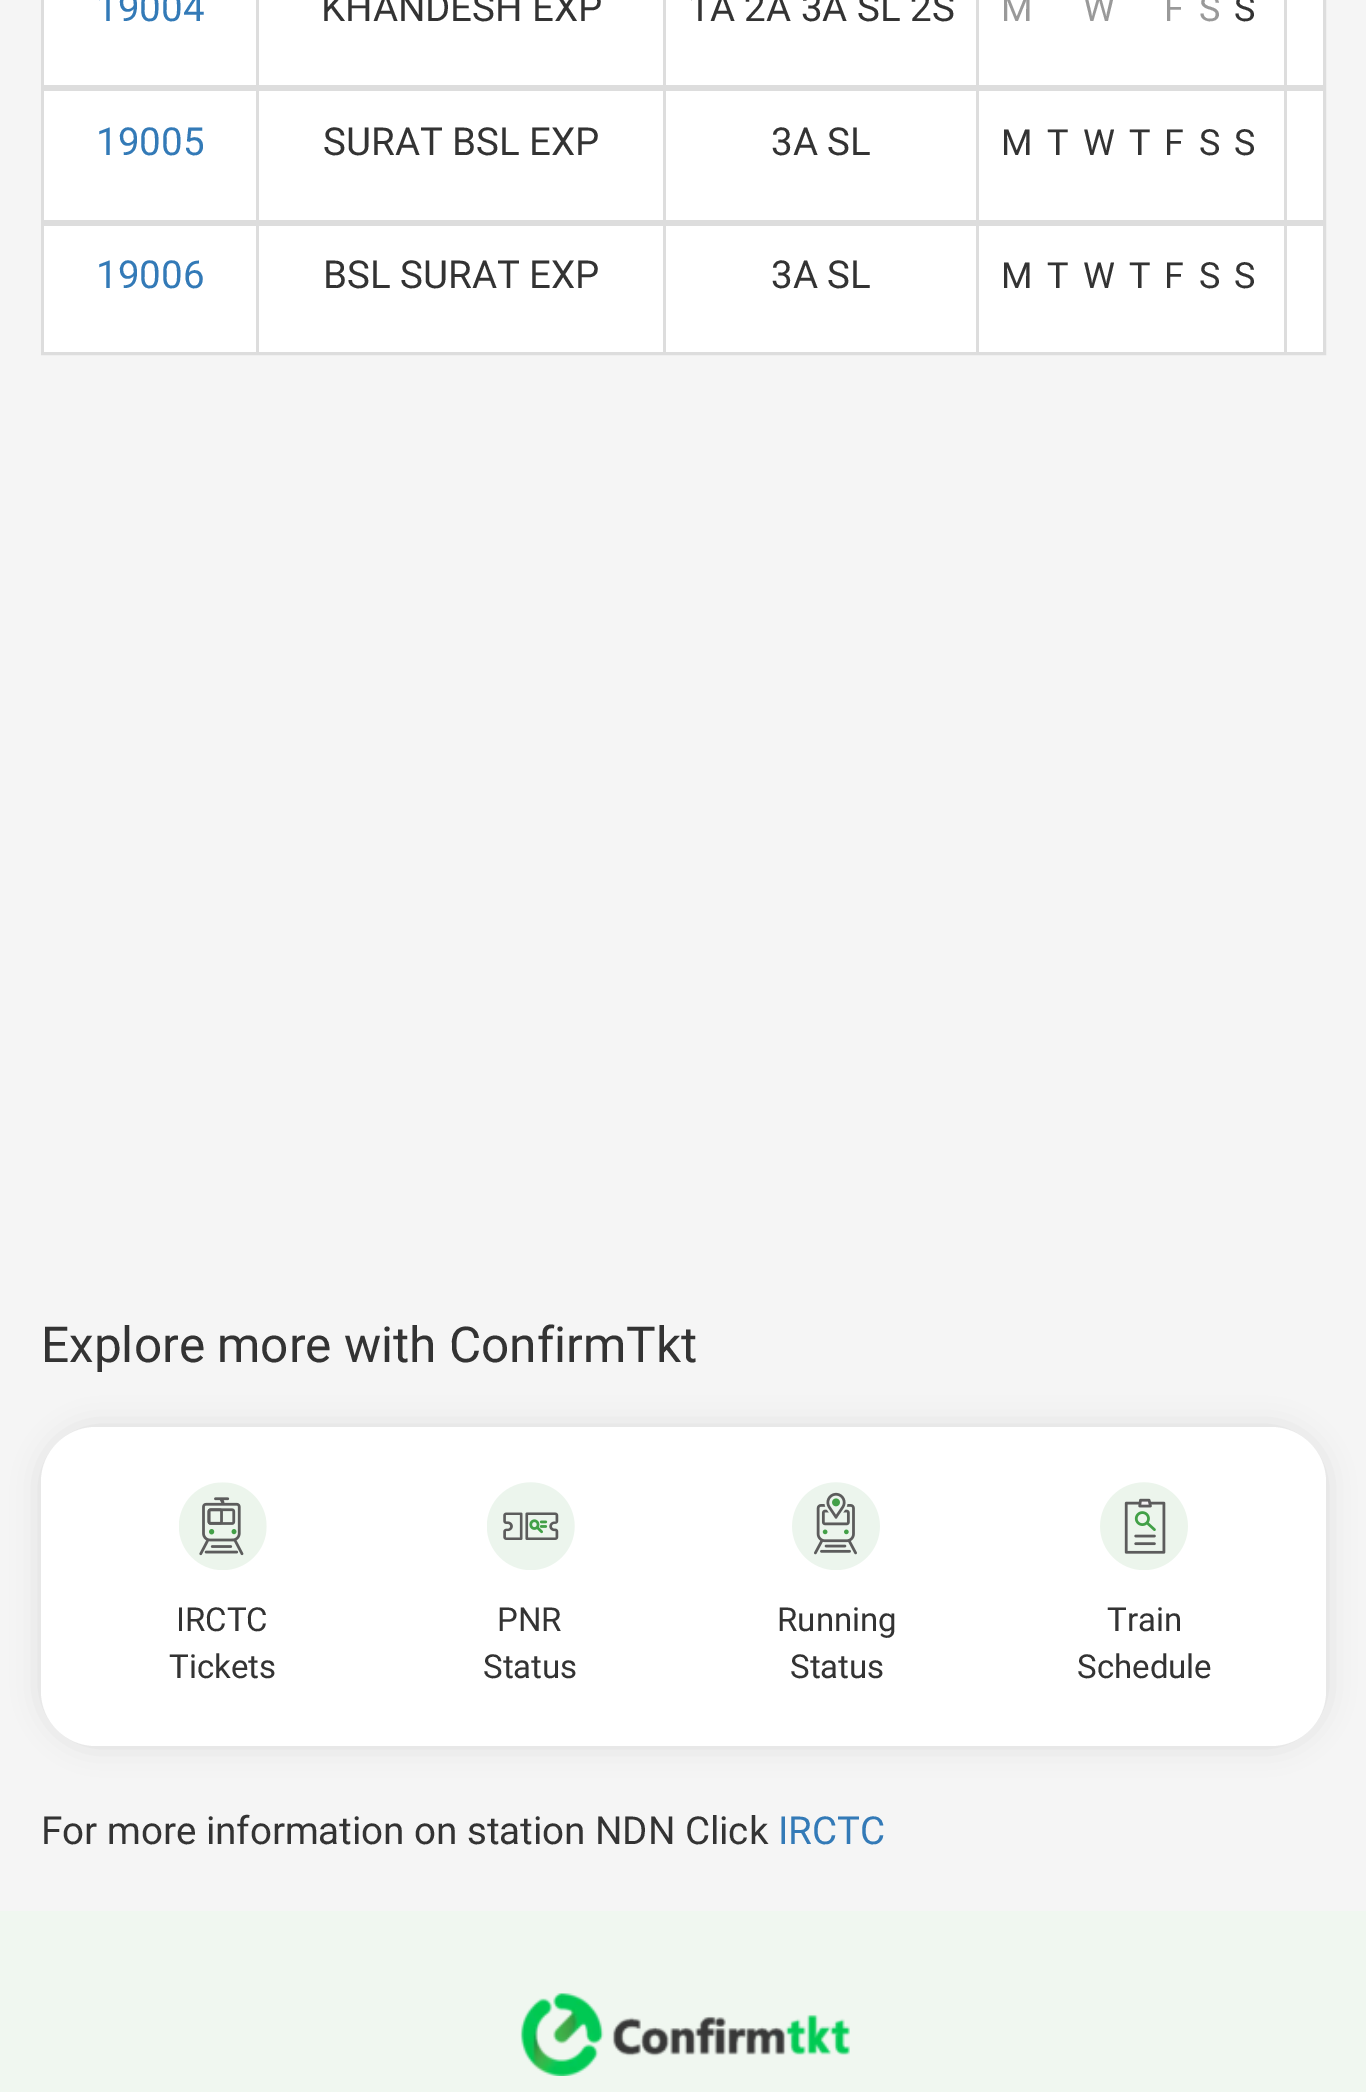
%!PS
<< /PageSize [1366 2092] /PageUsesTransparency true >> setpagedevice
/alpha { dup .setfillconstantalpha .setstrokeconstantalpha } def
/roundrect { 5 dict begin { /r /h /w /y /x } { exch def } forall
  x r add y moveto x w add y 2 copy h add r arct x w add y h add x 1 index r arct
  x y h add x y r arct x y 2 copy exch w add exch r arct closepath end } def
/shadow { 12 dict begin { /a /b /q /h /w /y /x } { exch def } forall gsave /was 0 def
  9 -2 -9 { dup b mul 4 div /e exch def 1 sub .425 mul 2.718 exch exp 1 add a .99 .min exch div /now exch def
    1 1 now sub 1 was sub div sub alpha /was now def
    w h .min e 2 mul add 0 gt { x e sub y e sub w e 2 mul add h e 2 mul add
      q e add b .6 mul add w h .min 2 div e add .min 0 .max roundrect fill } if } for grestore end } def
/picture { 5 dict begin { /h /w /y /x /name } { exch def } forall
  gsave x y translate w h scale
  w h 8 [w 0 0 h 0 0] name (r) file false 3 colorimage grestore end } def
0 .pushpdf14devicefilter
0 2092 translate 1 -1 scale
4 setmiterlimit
0.961 setgray
0 0 1366 2092 rectfill
0.867 setgray
3 setlinewidth
42.5 -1.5 1282 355 rectstroke
1 setgray
44 0 1279 352 rectfill
/Roboto-Regular [38.5 0 0 -38.5 0 0] selectfont
0.2 0.478 0.718 setrgbcolor
96 21 moveto (19004) show
0.2 setgray
321 21 moveto (KHANDESH EXP) show
688 21 moveto (1A 2A 3A SL 2S) show
/Roboto-Regular [36 0 0 -36 0 0] selectfont
0.6 setgray
1001 21 moveto (M) show
1083 21 moveto (W) show
1164 21 moveto (F) show
1199 21 moveto (S) show
0.2 setgray
1234 21 moveto (S) show
0.867 setgray
256 0 3 352 rectfill
976 0 3 352 rectfill
663 0 3 352 rectfill
1284 0 3 352 rectfill
44 85 1279 6 rectfill
/Roboto-Regular [38.5 0 0 -38.5 0 0] selectfont
0.2 0.478 0.718 setrgbcolor
96 155 moveto (19005) show
0.2 setgray
323 155 moveto (SURAT BSL EXP) show
771 155 moveto (3A SL) show
/Roboto-Regular [36 0 0 -36 0 0] selectfont
1001 155 moveto (M) show
1047 155 moveto (T) show
1083 155 moveto (W) show
1129 155 moveto (T) show
1164 155 moveto (F) show
1199 155 moveto (S) show
1234 155 moveto (S) show
0.867 setgray
44 220 1279 6 rectfill
/Roboto-Regular [38.5 0 0 -38.5 0 0] selectfont
0.2 0.478 0.718 setrgbcolor
96 288 moveto (19006) show
0.2 setgray
323 288 moveto (BSL SURAT EXP) show
771 288 moveto (3A SL) show
/Roboto-Regular [36 0 0 -36 0 0] selectfont
1001 288 moveto (M) show
1047 288 moveto (T) show
1083 288 moveto (W) show
1129 288 moveto (T) show
1164 288 moveto (F) show
1199 288 moveto (S) show
1234 288 moveto (S) show
/Roboto-Regular [49.5 0 0 -49.5 0 0] selectfont
41 1362 moveto (Explore more with ConfirmTkt) show
0 setgray
41 1427 1285 319 55 14 0.1 shadow
1 setgray
41 1427 1285 319 55 roundrect fill
(img1.rgb) 179 1482 88 88 picture
/Roboto-Regular [33 0 0 -33 0 0] selectfont
0.2 setgray
176 1631 moveto (IRCTC) show
169 1678 moveto (Tickets) show
(img2.rgb) 487 1482 88 88 picture
497 1631 moveto (PNR) show
483 1678 moveto (Status) show
(img3.rgb) 792 1482 88 88 picture
777 1631 moveto (Running) show
790 1678 moveto (Status) show
(img4.rgb) 1100 1482 88 88 picture
1107 1631 moveto (Train) show
1077 1678 moveto (Schedule) show
/Roboto-Regular [38.5 0 0 -38.5 0 0] selectfont
41 1844 moveto (For more information on station NDN Click) show
0.2 0.478 0.718 setrgbcolor
778 1844 moveto (IRCTC) show
0.941 0.969 0.941 setrgbcolor
0 1911 1366 181 rectfill
(img5.rgb) 520 1993 330 83 picture
.poppdf14devicefilter showpage
